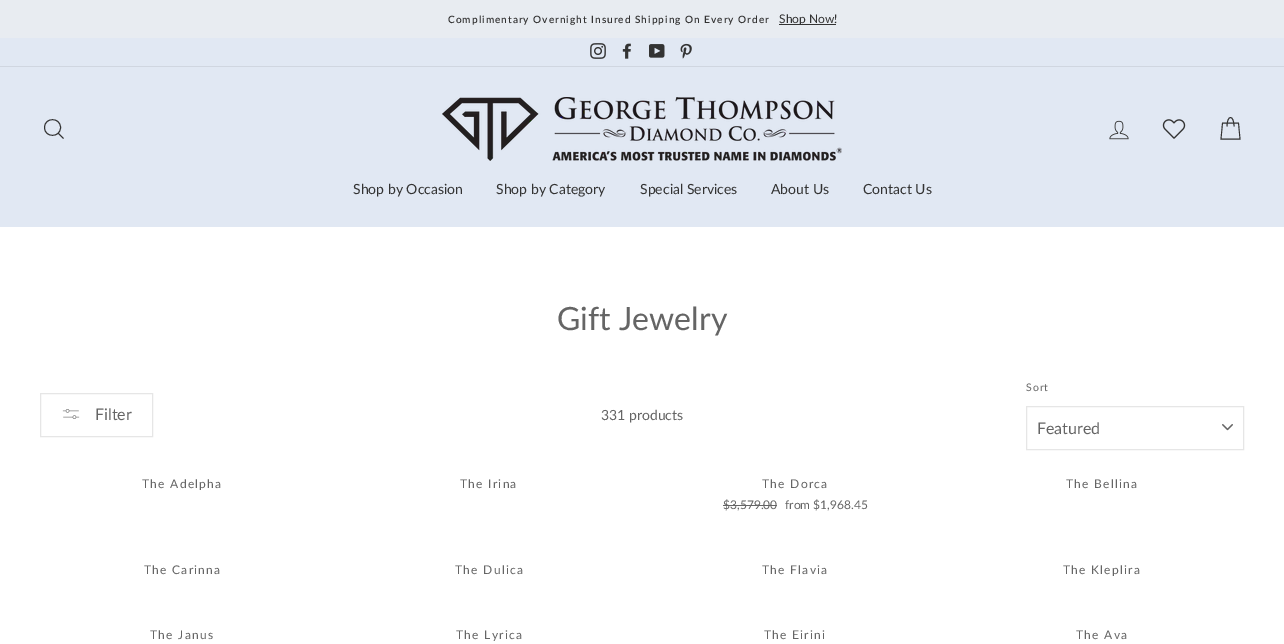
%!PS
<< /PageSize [1284 644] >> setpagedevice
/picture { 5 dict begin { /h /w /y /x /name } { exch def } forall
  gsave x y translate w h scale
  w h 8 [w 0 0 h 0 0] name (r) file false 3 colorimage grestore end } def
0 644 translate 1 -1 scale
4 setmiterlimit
1 setgray
0 0 1284 644 rectfill
0.91 0.925 0.945 setrgbcolor
0 0 1284 38 rectfill
/Lato-SemiBold [10.1 0 0 -10.1 0 0] selectfont
0.2 setgray
448 23 moveto 1 0 (Complimentary Overnight Insured Shipping On Every Order) ashow
779 24 57 1 rectfill
/Lato-Regular [12 0 0 -12 0 0] selectfont
779 23 moveto (Shop Now!) show
0.882 0.91 0.953 setrgbcolor
0 38 1284 28 rectfill
(img1.rgb) 590 43 16 16 picture
(img2.rgb) 622 43 9 16 picture
(img3.rgb) 649 44 16 14 picture
(img4.rgb) 680 43 12 16 picture
0 67 1284 160 rectfill
0.816 0.839 0.878 setrgbcolor
0 66 1284 1 rectfill
0.2 setgray
0.9 setlinewidth
newpath 60.5 127.5 moveto 60.5 138 44.5 138 44.5 127.5 curveto 44.5 117 60.5 117 60.5 127.5 curveto closepath 63.5 138.5 moveto 58.5 133.5 lineto stroke
(img5.rgb) 442 97 400 64 picture
(img6.rgb) 1109 120 20 20 picture
(img7.rgb) 1162 119 24 20 picture
newpath 1227 126.5 moveto 1227 114.5 1234 114.5 1234 126.5 curveto 1222.5 123 moveto 1238.5 123 lineto 1240 139 lineto 1221 139 lineto closepath stroke
/Lato-Regular [14 0 0 -14 0 0] selectfont
353 194 moveto (Shop by Occasion) show
496 194 moveto (Shop by Category) show
640 194 moveto (Special Services) show
771 194 moveto (About Us) show
863 194 moveto (Contact Us) show
/Lato-Regular [32 0 0 -32 0 0] selectfont
0.396 setgray
557 330 moveto (Gift Jewelry) show
0.902 setgray
1 setlinewidth
40.5 393.5 112 43 rectstroke
(img8.rgb) 62 409 18 10 picture
/Lato-Regular [16 0 0 -16 0 0] selectfont
0.396 setgray
95 420 moveto (Filter) show
/Lato-Regular [14 0 0 -14 0 0] selectfont
601 420 moveto (331 products) show
/Lato-Regular [10.5 0 0 -10.5 0 0] selectfont
1026 391 moveto 1 0 (Sort) ashow
(img9.rgb) 1222 424 11 7 picture
0.902 setgray
1026.5 406.5 217 43 rectstroke
/Lato-Regular [16 0 0 -16 0 0] selectfont
0.396 setgray
1037 434 moveto (Featured) show
/Lato-Regular [12 0 0 -12 0 0] selectfont
142 488 moveto 1.25 0 (The Adelpha) ashow
460 488 moveto 1.25 0 (The Irina) ashow
762 488 moveto 1.25 0 (The Dorca) ashow
723 509 moveto ($3,579.00) show
723 505 54 1 rectfill
785 509 moveto (from $1,968.45) show
1066 488 moveto 1.25 0 (The Bellina) ashow
144 574 moveto 1.25 0 (The Carinna) ashow
455 574 moveto 1.25 0 (The Dulica) ashow
762 574 moveto 1.25 0 (The Flavia) ashow
1063 574 moveto 1.25 0 (The Kleplira) ashow
150 639 moveto 1.25 0 (The Janus) ashow
456 639 moveto 1.25 0 (The Lyrica) ashow
764 639 moveto 1.25 0 (The Eirini) ashow
1076 639 moveto 1.25 0 (The Ava) ashow
showpage
